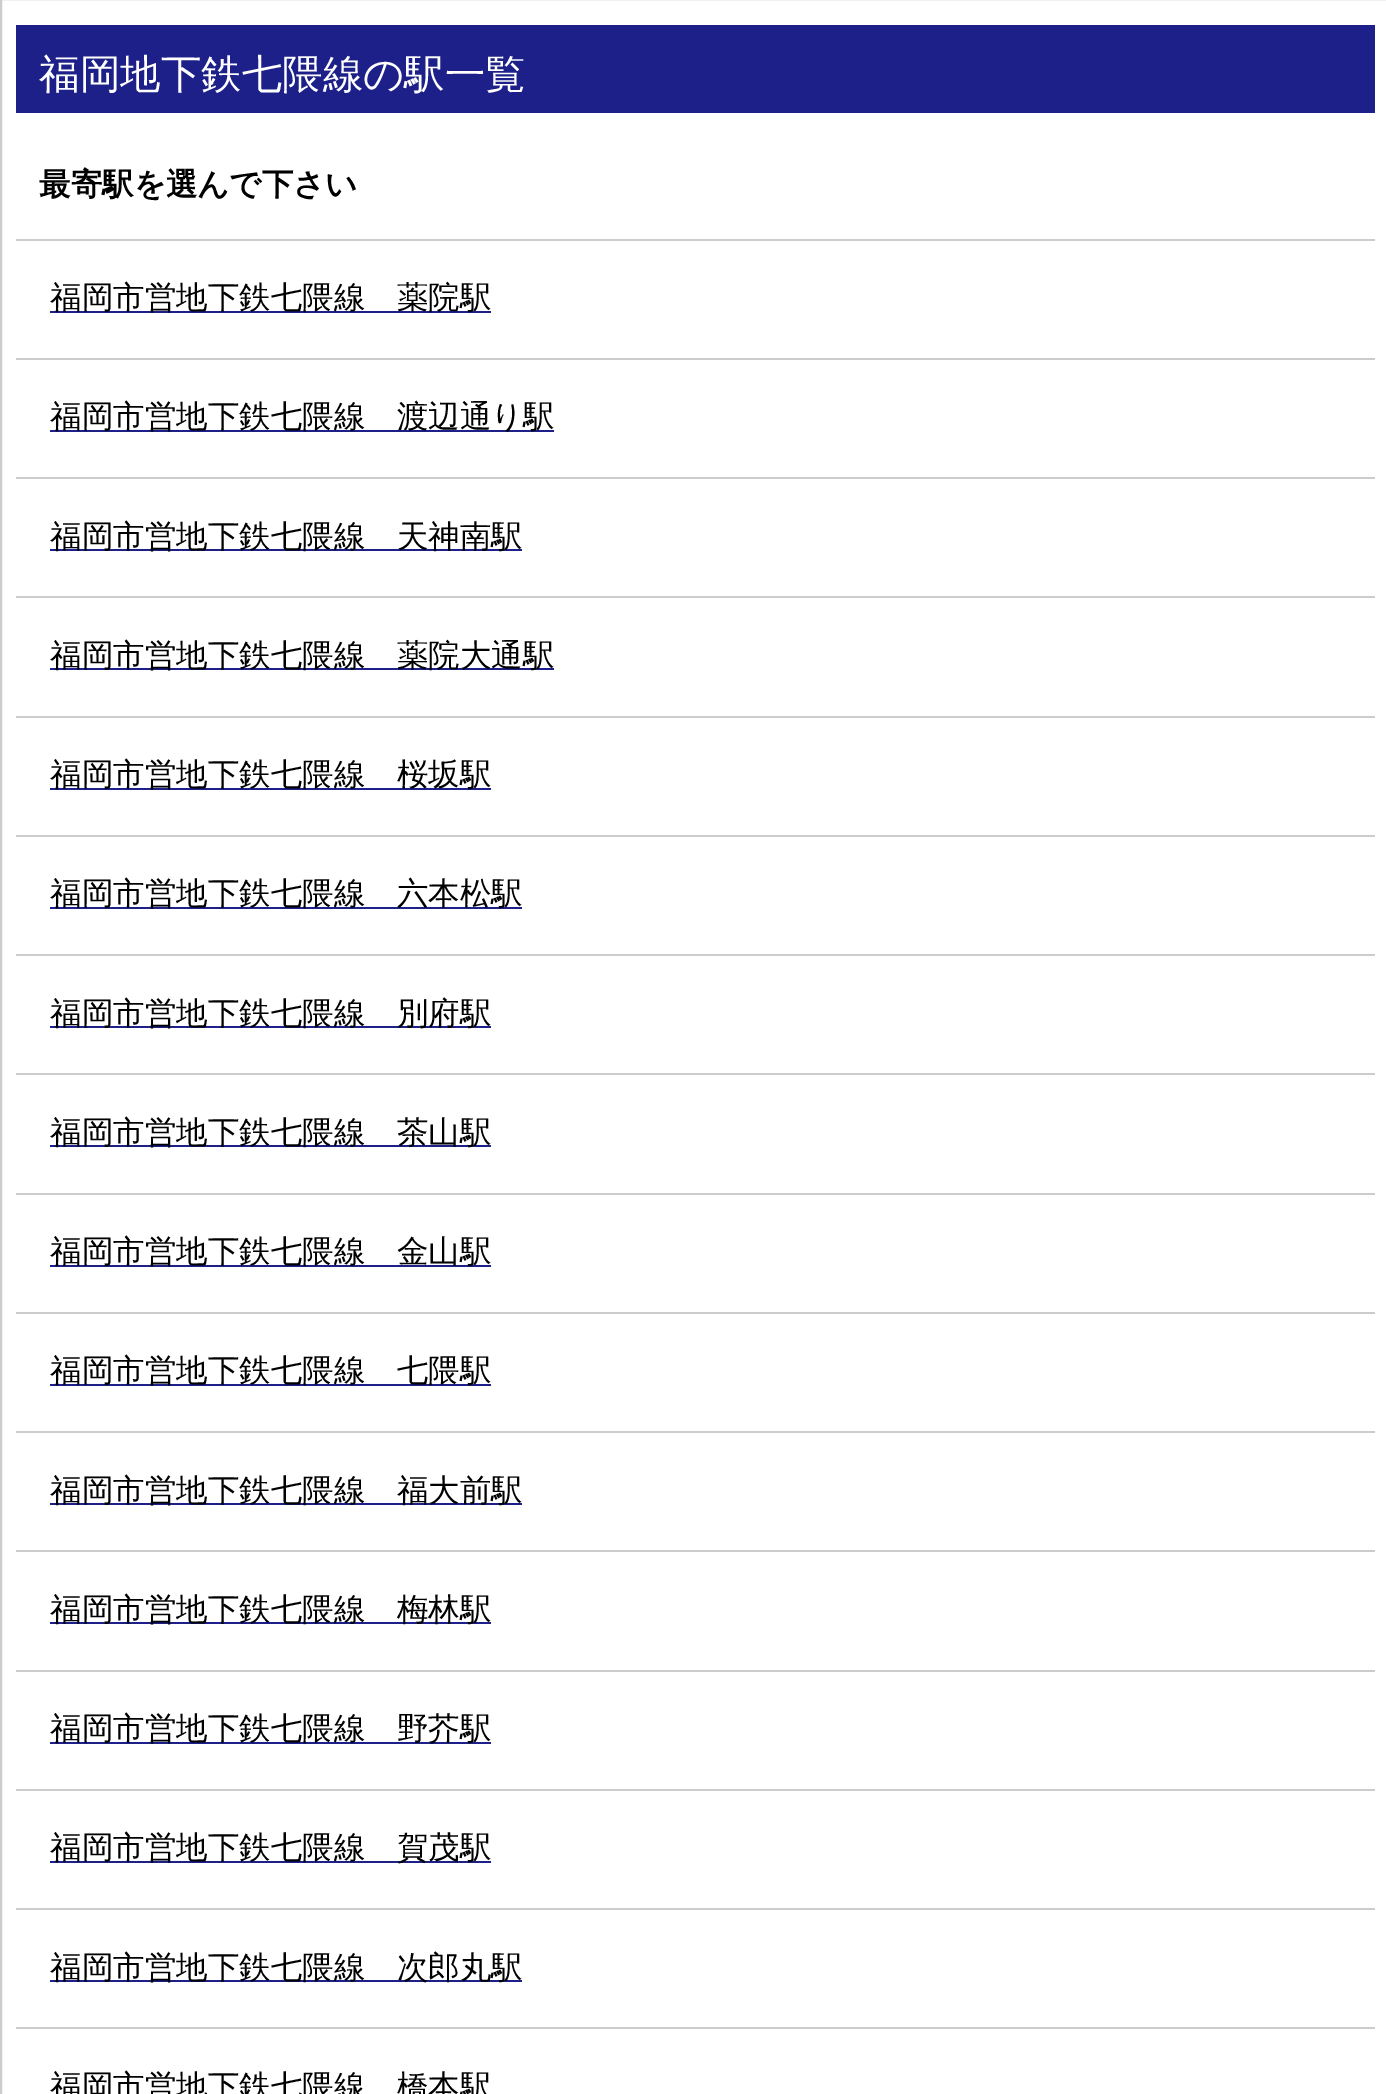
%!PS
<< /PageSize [1386 2094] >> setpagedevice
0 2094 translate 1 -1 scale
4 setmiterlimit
1 setgray
0 0 1386 2094 rectfill
0.8 setgray
2 setlinewidth
1 -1 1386 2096 rectstroke
0.114 0.125 0.533 setrgbcolor
16 25 1359 88 rectfill
/WenQuanYiZenHei-Medium [40.5 0 0 -40.5 0 0] selectfont
1 setgray
39 88 moveto (福岡地下鉄七隈線の駅一覧) show
/WenQuanYiZenHei-Bold [31.5 0 0 -31.5 0 0] selectfont
0 setgray
39 195 moveto (最寄駅を選んで下さい) show
0.8 setgray
16 239 1359 2 rectfill
0.114 0.125 0.533 setrgbcolor
50 311 441 2 rectfill
/WenQuanYiZenHei-Medium [31.5 0 0 -31.5 0 0] selectfont
0 setgray
50 308 moveto (福岡市営地下鉄七隈線　薬院駅) show
0.8 setgray
16 358 1359 2 rectfill
0.114 0.125 0.533 setrgbcolor
50 430 504 2 rectfill
0 setgray
50 427 moveto (福岡市営地下鉄七隈線　渡辺通り駅) show
0.8 setgray
16 477 1359 2 rectfill
0.114 0.125 0.533 setrgbcolor
50 549 472 2 rectfill
0 setgray
50 547 moveto (福岡市営地下鉄七隈線　天神南駅) show
0.8 setgray
16 596 1359 2 rectfill
0.114 0.125 0.533 setrgbcolor
50 668 504 2 rectfill
0 setgray
50 666 moveto (福岡市営地下鉄七隈線　薬院大通駅) show
0.8 setgray
16 716 1359 2 rectfill
0.114 0.125 0.533 setrgbcolor
50 788 441 2 rectfill
0 setgray
50 785 moveto (福岡市営地下鉄七隈線　桜坂駅) show
0.8 setgray
16 835 1359 2 rectfill
0.114 0.125 0.533 setrgbcolor
50 907 472 2 rectfill
0 setgray
50 904 moveto (福岡市営地下鉄七隈線　六本松駅) show
0.8 setgray
16 954 1359 2 rectfill
0.114 0.125 0.533 setrgbcolor
50 1026 441 2 rectfill
0 setgray
50 1024 moveto (福岡市営地下鉄七隈線　別府駅) show
0.8 setgray
16 1073 1359 2 rectfill
0.114 0.125 0.533 setrgbcolor
50 1145 441 2 rectfill
0 setgray
50 1143 moveto (福岡市営地下鉄七隈線　茶山駅) show
0.8 setgray
16 1193 1359 2 rectfill
0.114 0.125 0.533 setrgbcolor
50 1265 441 2 rectfill
0 setgray
50 1262 moveto (福岡市営地下鉄七隈線　金山駅) show
0.8 setgray
16 1312 1359 2 rectfill
0.114 0.125 0.533 setrgbcolor
50 1384 441 2 rectfill
0 setgray
50 1381 moveto (福岡市営地下鉄七隈線　七隈駅) show
0.8 setgray
16 1431 1359 2 rectfill
0.114 0.125 0.533 setrgbcolor
50 1503 472 2 rectfill
0 setgray
50 1501 moveto (福岡市営地下鉄七隈線　福大前駅) show
0.8 setgray
16 1550 1359 2 rectfill
0.114 0.125 0.533 setrgbcolor
50 1622 441 2 rectfill
0 setgray
50 1620 moveto (福岡市営地下鉄七隈線　梅林駅) show
0.8 setgray
16 1670 1359 2 rectfill
0.114 0.125 0.533 setrgbcolor
50 1742 441 2 rectfill
0 setgray
50 1739 moveto (福岡市営地下鉄七隈線　野芥駅) show
0.8 setgray
16 1789 1359 2 rectfill
0.114 0.125 0.533 setrgbcolor
50 1861 441 2 rectfill
0 setgray
50 1858 moveto (福岡市営地下鉄七隈線　賀茂駅) show
0.8 setgray
16 1908 1359 2 rectfill
0.114 0.125 0.533 setrgbcolor
50 1980 472 2 rectfill
0 setgray
50 1978 moveto (福岡市営地下鉄七隈線　次郎丸駅) show
0.8 setgray
16 2027 1359 2 rectfill
0 setgray
50 2097 moveto (福岡市営地下鉄七隈線　橋本駅) show
showpage
